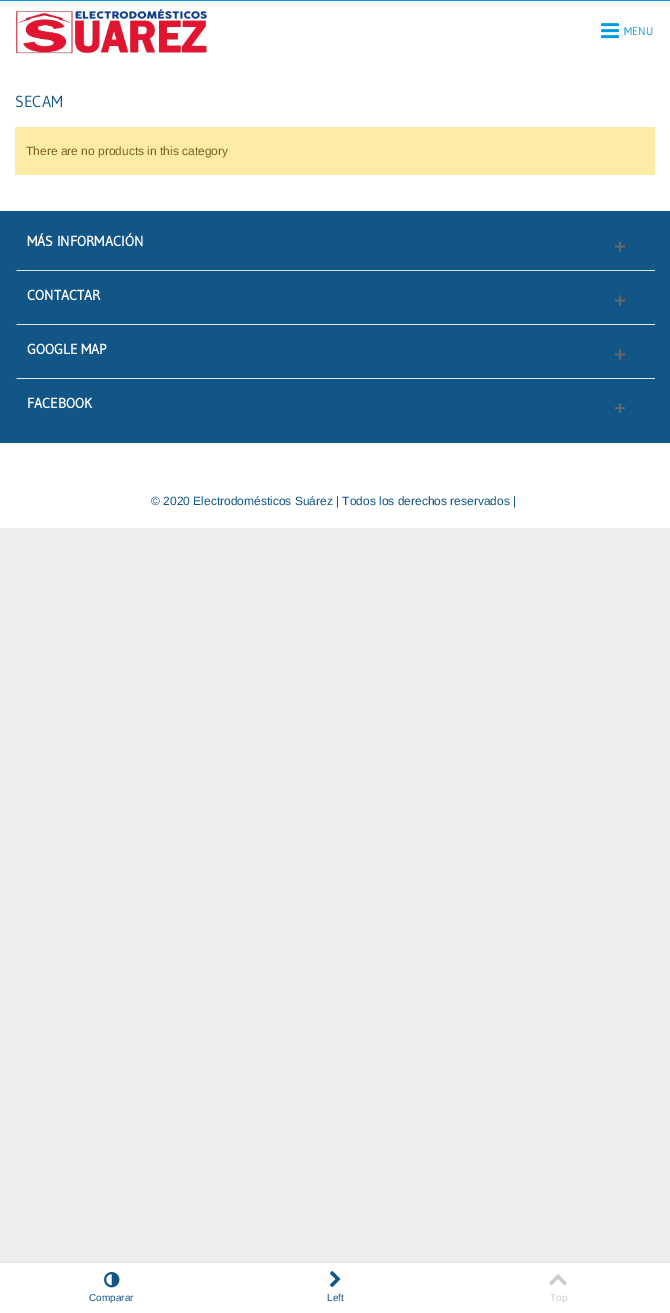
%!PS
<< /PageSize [670 1313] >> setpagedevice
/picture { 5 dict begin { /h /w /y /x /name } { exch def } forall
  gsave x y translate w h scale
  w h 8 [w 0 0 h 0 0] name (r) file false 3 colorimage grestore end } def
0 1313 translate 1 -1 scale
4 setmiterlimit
0.933 0.925 0.937 setrgbcolor
0 0 670 1313 rectfill
1 setgray
0 1 670 210 rectfill
0 0.612 0.89 setrgbcolor
0 0 670 1 rectfill
(img1.rgb) 15 6 193 48 picture
(img2.rgb) 601 23 18 16 picture
/Gudea-Regular [11 0 0 -11 0 0] selectfont
624 35 moveto (MENU) show
/Gudea-Regular [16 0 0 -16 0 0] selectfont
0.071 0.337 0.533 setrgbcolor
15 107 moveto (SECAM) show
0.992 0.929 0.643 setrgbcolor
15 127 640 48 rectfill
/LiberationSans-Regular [12 0 0 -12 0 0] selectfont
0.486 0.384 0.165 setrgbcolor
26 155 moveto (There are no products in this category) show
0.071 0.337 0.533 setrgbcolor
0 211 670 232 rectfill
0.898 setgray
newpath 655 271 moveto 15 271 lineto 17 270 lineto 655 270 lineto closepath fill
0.071 0.337 0.533 setrgbcolor
newpath 15 271 moveto 15 223 lineto 17 223 lineto 17 270 lineto closepath fill
/Gudea-Bold [14 0 0 -14 0 0] selectfont
1 setgray
27 246 moveto (MÁS INFORMACIÓN) show
(img3.rgb) 615 241 10 11 picture
0.898 setgray
newpath 655 325 moveto 15 325 lineto 17 324 lineto 655 324 lineto closepath fill
0.071 0.337 0.533 setrgbcolor
newpath 15 325 moveto 15 277 lineto 17 277 lineto 17 324 lineto closepath fill
1 setgray
27 300 moveto (CONTACTAR) show
(img3.rgb) 615 295 10 11 picture
0.898 setgray
newpath 655 379 moveto 15 379 lineto 17 378 lineto 655 378 lineto closepath fill
0.071 0.337 0.533 setrgbcolor
newpath 15 379 moveto 15 331 lineto 17 331 lineto 17 378 lineto closepath fill
1 setgray
27 354 moveto (GOOGLE MAP) show
(img3.rgb) 615 349 10 11 picture
27 408 moveto (FACEBOOK) show
(img4.rgb) 615 403 10 10 picture
0 443 670 85 rectfill
/LiberationSans-Regular [12 0 0 -12 0 0] selectfont
0.071 0.337 0.533 setrgbcolor
151 505 moveto (© 2020 Electrodomésticos Suárez | Todos los derechos reservados |) show
1 setgray
0 1263 670 50 rectfill
0.898 setgray
0 1262 670 1 rectfill
(img5.rgb) 104 1272 16 16 picture
/LiberationSans-Regular [10 0 0 -10 0 0] selectfont
0.071 0.337 0.533 setrgbcolor
89 1301 moveto (Comparar) show
(img6.rgb) 329 1271 12 17 picture
327 1301 moveto (Left) show
0.8 setgray
newpath 549 1283 moveto 558 1274 lineto 567 1283 lineto 564.5 1285.5 lineto 558 1279 lineto 551.5 1285.5 lineto closepath fill
550 1301 moveto (Top) show
showpage
